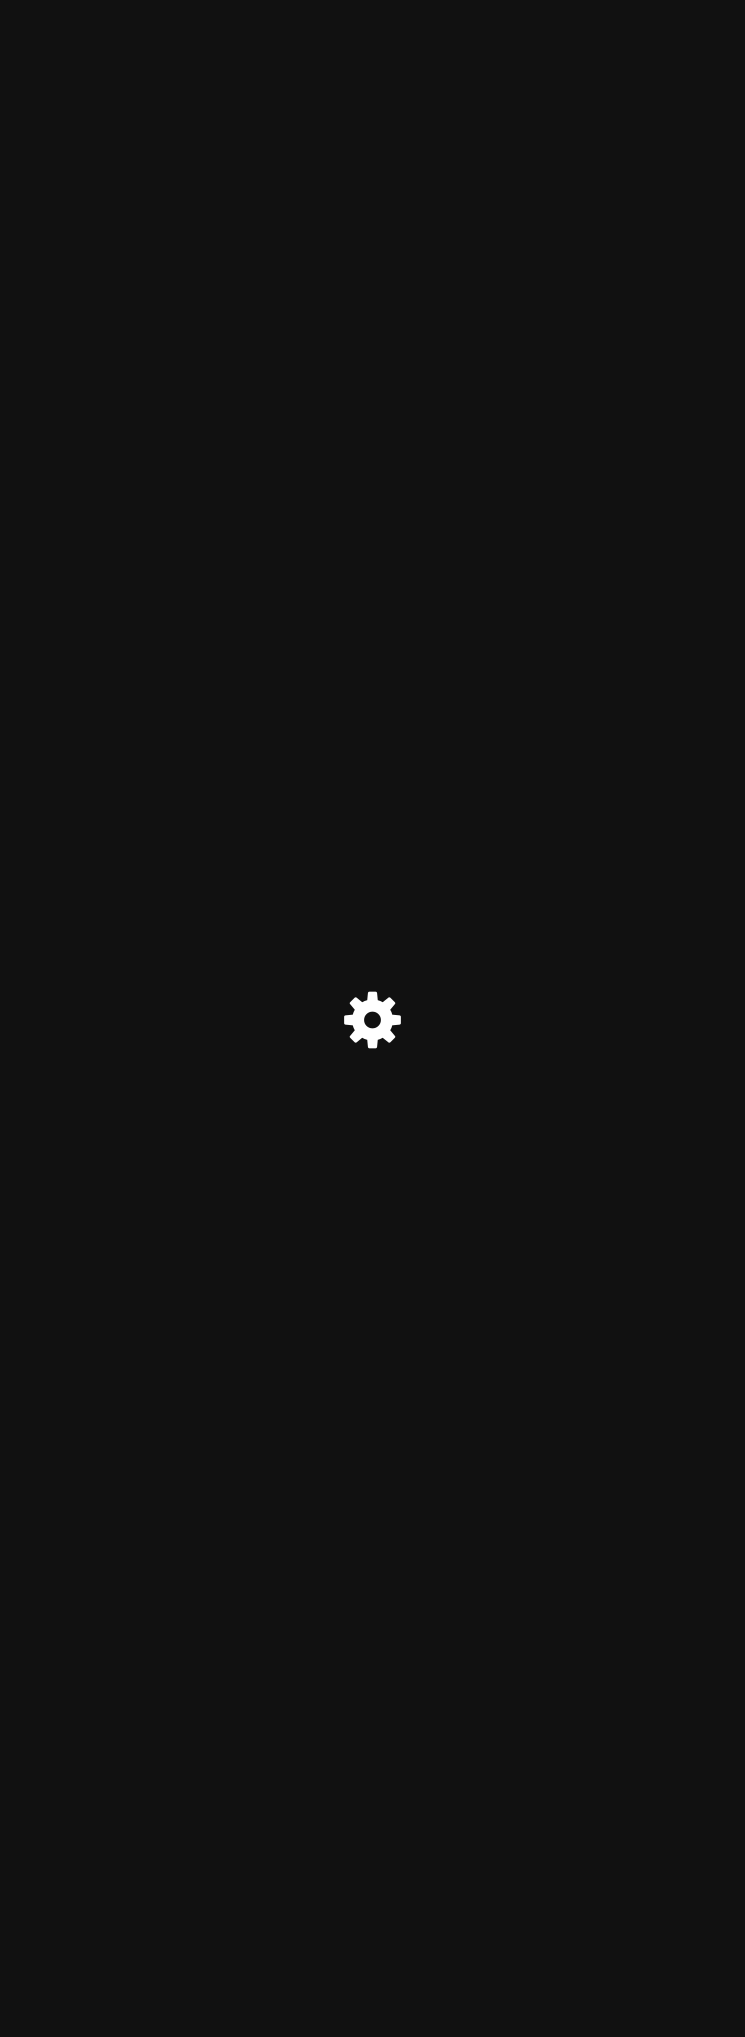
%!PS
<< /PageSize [745 2037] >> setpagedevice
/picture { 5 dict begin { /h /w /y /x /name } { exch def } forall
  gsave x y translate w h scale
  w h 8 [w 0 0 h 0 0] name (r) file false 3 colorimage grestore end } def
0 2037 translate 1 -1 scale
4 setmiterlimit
0.067 setgray
0 0 745 2037 rectfill
(img1.rgb) 344 991 57 58 picture
showpage
